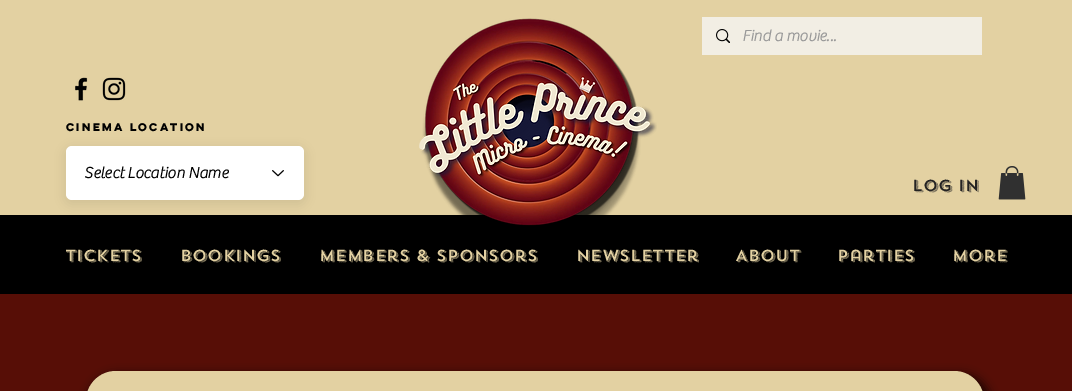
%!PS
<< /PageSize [1072 391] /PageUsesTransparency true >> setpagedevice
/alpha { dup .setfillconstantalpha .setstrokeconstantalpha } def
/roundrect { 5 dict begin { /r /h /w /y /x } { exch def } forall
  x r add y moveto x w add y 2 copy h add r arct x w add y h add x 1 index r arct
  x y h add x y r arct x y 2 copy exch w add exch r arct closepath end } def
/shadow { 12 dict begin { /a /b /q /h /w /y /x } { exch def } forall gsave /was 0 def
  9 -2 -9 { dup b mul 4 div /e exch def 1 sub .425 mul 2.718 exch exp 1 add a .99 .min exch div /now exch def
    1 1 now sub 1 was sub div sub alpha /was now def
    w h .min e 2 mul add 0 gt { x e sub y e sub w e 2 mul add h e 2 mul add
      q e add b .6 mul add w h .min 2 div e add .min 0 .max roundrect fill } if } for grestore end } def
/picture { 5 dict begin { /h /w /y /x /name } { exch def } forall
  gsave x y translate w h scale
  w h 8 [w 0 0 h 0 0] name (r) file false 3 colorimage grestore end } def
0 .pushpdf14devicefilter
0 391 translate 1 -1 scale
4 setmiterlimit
0.89 0.82 0.635 setrgbcolor
0 0 1072 391 rectfill
0 setgray
0 215 1072 79 rectfill
(img1.rgb) 419 18 238 208 picture
0.949 0.933 0.894 setrgbcolor
702 17 280 38 rectfill
(img2.rgb) 716 29 14 14 picture
/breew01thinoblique-Bold [16 0 0 -16 0 0] selectfont
0.6 setgray
742 41 moveto (Find a movie...) show
(img3.rgb) 75 77 13 24 picture
(img4.rgb) 102 77 24 24 picture
/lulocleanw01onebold-Bold [10 0 0 -10 0 0] selectfont
0 setgray
66 131 moveto (Cinema Location) show
65 148 240 56 7 5 0.08 shadow
1 setgray
66 146 238 54 6 roundrect fill
/breew01thinoblique-Bold [16 0 0 -16 0 0] selectfont
0 setgray
84 178 moveto (Select Location Name) show
(img5.rgb) 272 170 12 7 picture
/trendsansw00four-Medium [16 0 0 -16 0 0] selectfont
0.141 0.137 0.137 setrgbcolor
912 191 moveto (Log In) show
(img6.rgb) 998 166 28 34 picture
0.89 0.82 0.635 setrgbcolor
65 261 moveto (Tickets) show
180 261 moveto (Bookings) show
319 261 moveto (Members & Sponsors) show
576 261 moveto (Newsletter) show
735 261 moveto (About) show
837 261 moveto (Parties) show
952 261 moveto (More) show
0.341 0.055 0.024 setrgbcolor
0 294 1072 97 rectfill
0 setgray
86 373 906 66 34 4.5 0.6 shadow
0.89 0.82 0.635 setrgbcolor
86 371 898 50 30 roundrect fill
.poppdf14devicefilter showpage
